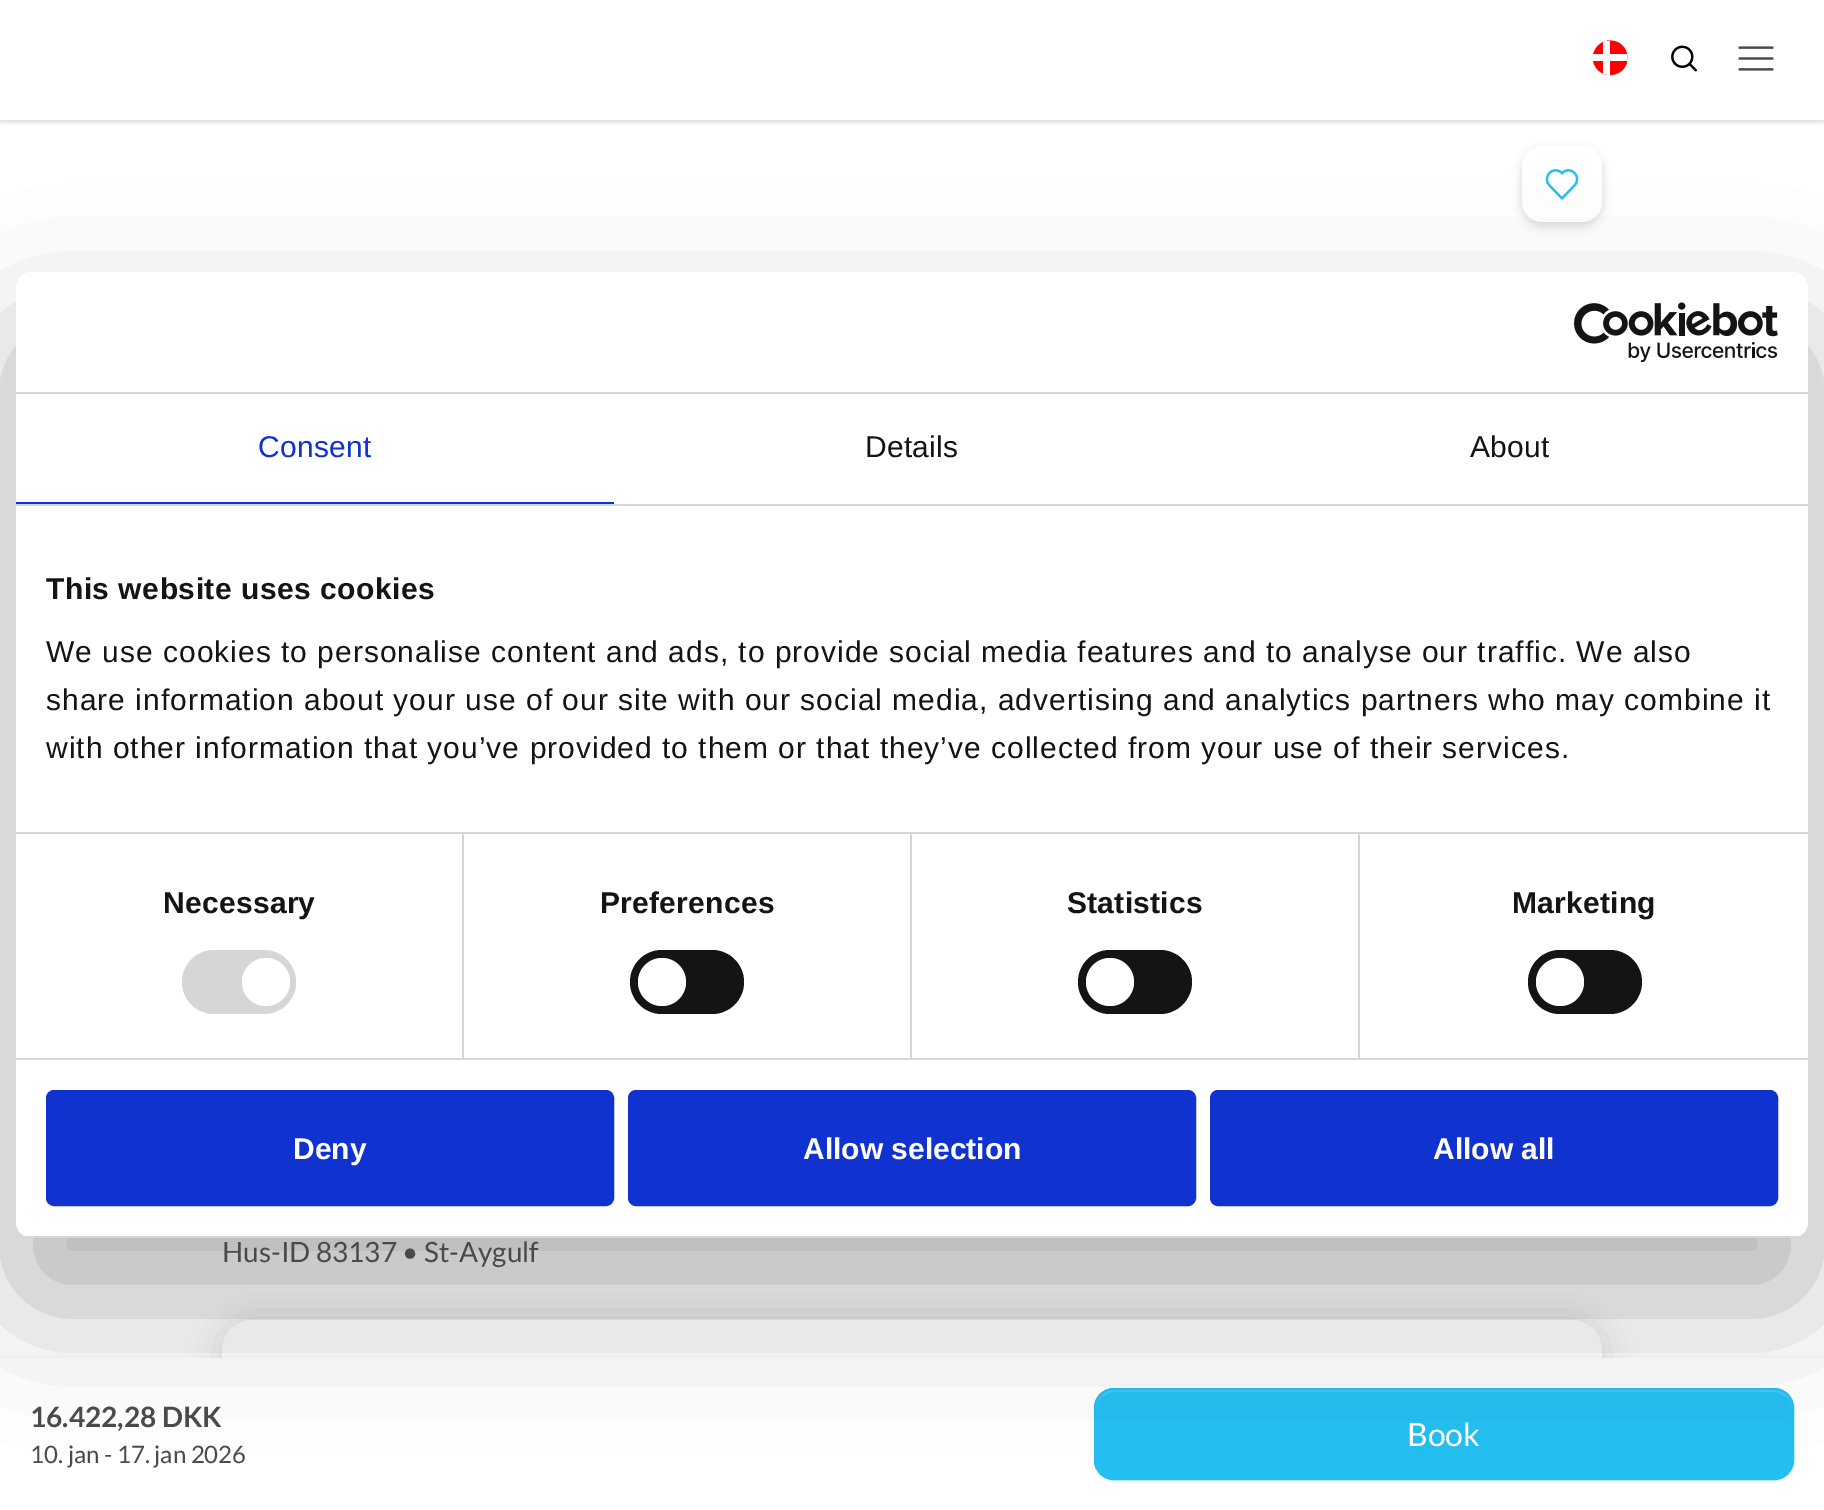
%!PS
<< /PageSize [1824 1510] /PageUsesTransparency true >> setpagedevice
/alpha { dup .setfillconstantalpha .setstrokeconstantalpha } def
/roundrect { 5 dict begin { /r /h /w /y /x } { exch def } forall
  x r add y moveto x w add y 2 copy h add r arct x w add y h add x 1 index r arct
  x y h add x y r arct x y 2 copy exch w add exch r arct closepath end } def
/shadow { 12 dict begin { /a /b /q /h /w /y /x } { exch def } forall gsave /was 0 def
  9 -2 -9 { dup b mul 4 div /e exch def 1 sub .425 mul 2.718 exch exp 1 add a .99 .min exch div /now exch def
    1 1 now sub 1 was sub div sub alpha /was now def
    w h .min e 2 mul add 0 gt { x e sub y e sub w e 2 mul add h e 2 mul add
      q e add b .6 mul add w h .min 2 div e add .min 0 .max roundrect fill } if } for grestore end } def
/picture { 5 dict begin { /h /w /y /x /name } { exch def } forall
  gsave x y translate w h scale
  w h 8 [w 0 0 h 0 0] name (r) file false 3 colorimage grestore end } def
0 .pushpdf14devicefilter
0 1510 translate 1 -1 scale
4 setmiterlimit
1 setgray
0 0 1824 1510 rectfill
0 setgray
1522 150 80 76 20 5 0.15 shadow
1 setgray
1522 146 80 76 20 roundrect fill
(img4.rgb) 1545 169 34 31 picture
0.169 0.165 0.129 setrgbcolor
222 1320 1380 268 30 16 0.15 shadow
1 setgray
222 1320 1380 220 30 roundrect fill
0 setgray
0 1362 1824 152 0 5 0.15 shadow
1 setgray
0 1358 1824 152 rectfill
0.169 0.165 0.129 setrgbcolor
1094 1390 700 92 20 1 0.07 shadow
0.141 0.745 0.945 setrgbcolor
1094 1388 700 92 20 roundrect fill
0.271 0.784 0.953 setrgbcolor
newpath 1114 1392 moveto 1774 1392 lineto 1784 1392 1792 1400 1792 1410 curveto 1792 1408 lineto 1792 1398 1784 1390 1774 1390 curveto 1114 1390 lineto 1104 1390 1096 1398 1096 1408 curveto 1096 1410 lineto 1096 1400 1104 1392 1114 1392 curveto closepath fill
0.141 0.745 0.945 setrgbcolor
2 setlinewidth
1095 1389 698 90 19 roundrect stroke
0 setgray
16 336 1792 966 16 68 0.3 shadow
1 setgray
16 272 1792 966 16 roundrect fill
0.839 setgray
16 392 1792 2 rectfill
(img1.rgb) 1574 302 204 60 picture
16 504 1792 2 rectfill
0.063 0.196 0.812 setrgbcolor
16 502 598 2 rectfill
/LiberationSans-Regular [30 0 0 -30 0 0] selectfont
258 457 moveto 0.25 0 (Consent) ashow
0.078 setgray
865 457 moveto 0.25 0 (Details) ashow
1470 457 moveto 0.25 0 (About) ashow
0.839 setgray
16 832 1792 2 rectfill
/LiberationSans-Bold [30 0 0 -30 0 0] selectfont
0.078 setgray
46 599 moveto 0.5 0 (This website uses cookies) ashow
/LiberationSans-Regular [30 0 0 -30 0 0] selectfont
46 662 moveto 1 0 (We use cookies to personalise content and ads, to provide social media features and to analyse our traffic. We also) ashow
46 710 moveto 1 0 (share information about your use of our site with our social media, advertising and analytics partners who may combine it) ashow
46 758 moveto 1 0 (with other information that you’ve provided to them or that they’ve collected from your use of their services.) ashow
0.839 setgray
16 1058 1792 2 rectfill
462 834 2 224 rectfill
/LiberationSans-Bold [30 0 0 -30 0 0] selectfont
0.078 setgray
163 913 moveto 0.25 0 (Necessary) ashow
0.839 setgray
182 950 114 64 32 roundrect fill
1 setgray
newpath 266 982 24 0 360 arc closepath fill
0.839 setgray
910 834 2 224 rectfill
0.078 setgray
600 913 moveto 0.25 0 (Preferences) ashow
630 950 114 64 32 roundrect fill
1 setgray
newpath 662 982 24 0 360 arc closepath fill
0.839 setgray
1358 834 2 224 rectfill
0.078 setgray
1067 913 moveto 0.25 0 (Statistics) ashow
1078 950 114 64 32 roundrect fill
1 setgray
newpath 1110 982 24 0 360 arc closepath fill
0.078 setgray
1512 913 moveto 0.25 0 (Marketing) ashow
1528 950 114 64 32 roundrect fill
1 setgray
newpath 1560 982 24 0 360 arc closepath fill
gsave
16 272 1792 966 16 roundrect clip newpath
0.839 setgray
16 1236 1792 2 rectfill
grestore
0.063 0.196 0.812 setrgbcolor
48 1092 564 112 6 roundrect gsave fill grestore
4 setlinewidth
stroke
1 setgray
293 1159 moveto (Deny) show
0.063 0.196 0.812 setrgbcolor
630 1092 564 112 6 roundrect gsave fill grestore
stroke
1 setgray
803 1159 moveto (Allow selection) show
0.063 0.196 0.812 setrgbcolor
1212 1092 564 112 6 roundrect gsave fill grestore
stroke
1 setgray
1433 1159 moveto (Allow all) show
gsave
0 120 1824 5 rectclip
0 setgray
0 2 1824 120 0 3 0.15 shadow
grestore
1 0 0 setrgbcolor
newpath 1610 40.5 moveto 1620 40.5 1627.5 48 1627.5 58 curveto 1627.5 67.5 1620 75 1610 75 curveto 1601.5 75 1594.5 69 1593 60.5 curveto 1593 55 lineto 1594.5 47 1601.5 40.5 1610 40.5 curveto closepath fill
1 setgray
newpath 1593 61 moveto 1592.5 58.5 1592.5 56.5 1593 54 curveto 1627 54 lineto 1627.5 56.5 1627.5 58.5 1627.5 61 curveto closepath fill
newpath 1606 41 moveto 1610 41 lineto 1610 75 lineto 1607.5 75 1605 74.5 1603 73.5 curveto 1603 42 lineto closepath fill
(img2.rgb) 1671 45 26 27 picture
(img3.rgb) 1738 46 36 25 picture
/Lato-Regular [28 0 0 -28 0 0] selectfont
0.29 setgray
222 1262 moveto (Hus-ID 83137 • St-Aygulf) show
/Lato-Bold [28 0 0 -28 0 0] selectfont
30 1427 moveto (16.422,28 DKK) show
/Lato-Regular [24 0 0 -24 0 0] selectfont
30 1463 moveto (10. jan - 17. jan 2026) show
/Lato-Regular [32 0 0 -32 0 0] selectfont
1 setgray
1407 1446 moveto (Book) show
.poppdf14devicefilter showpage
